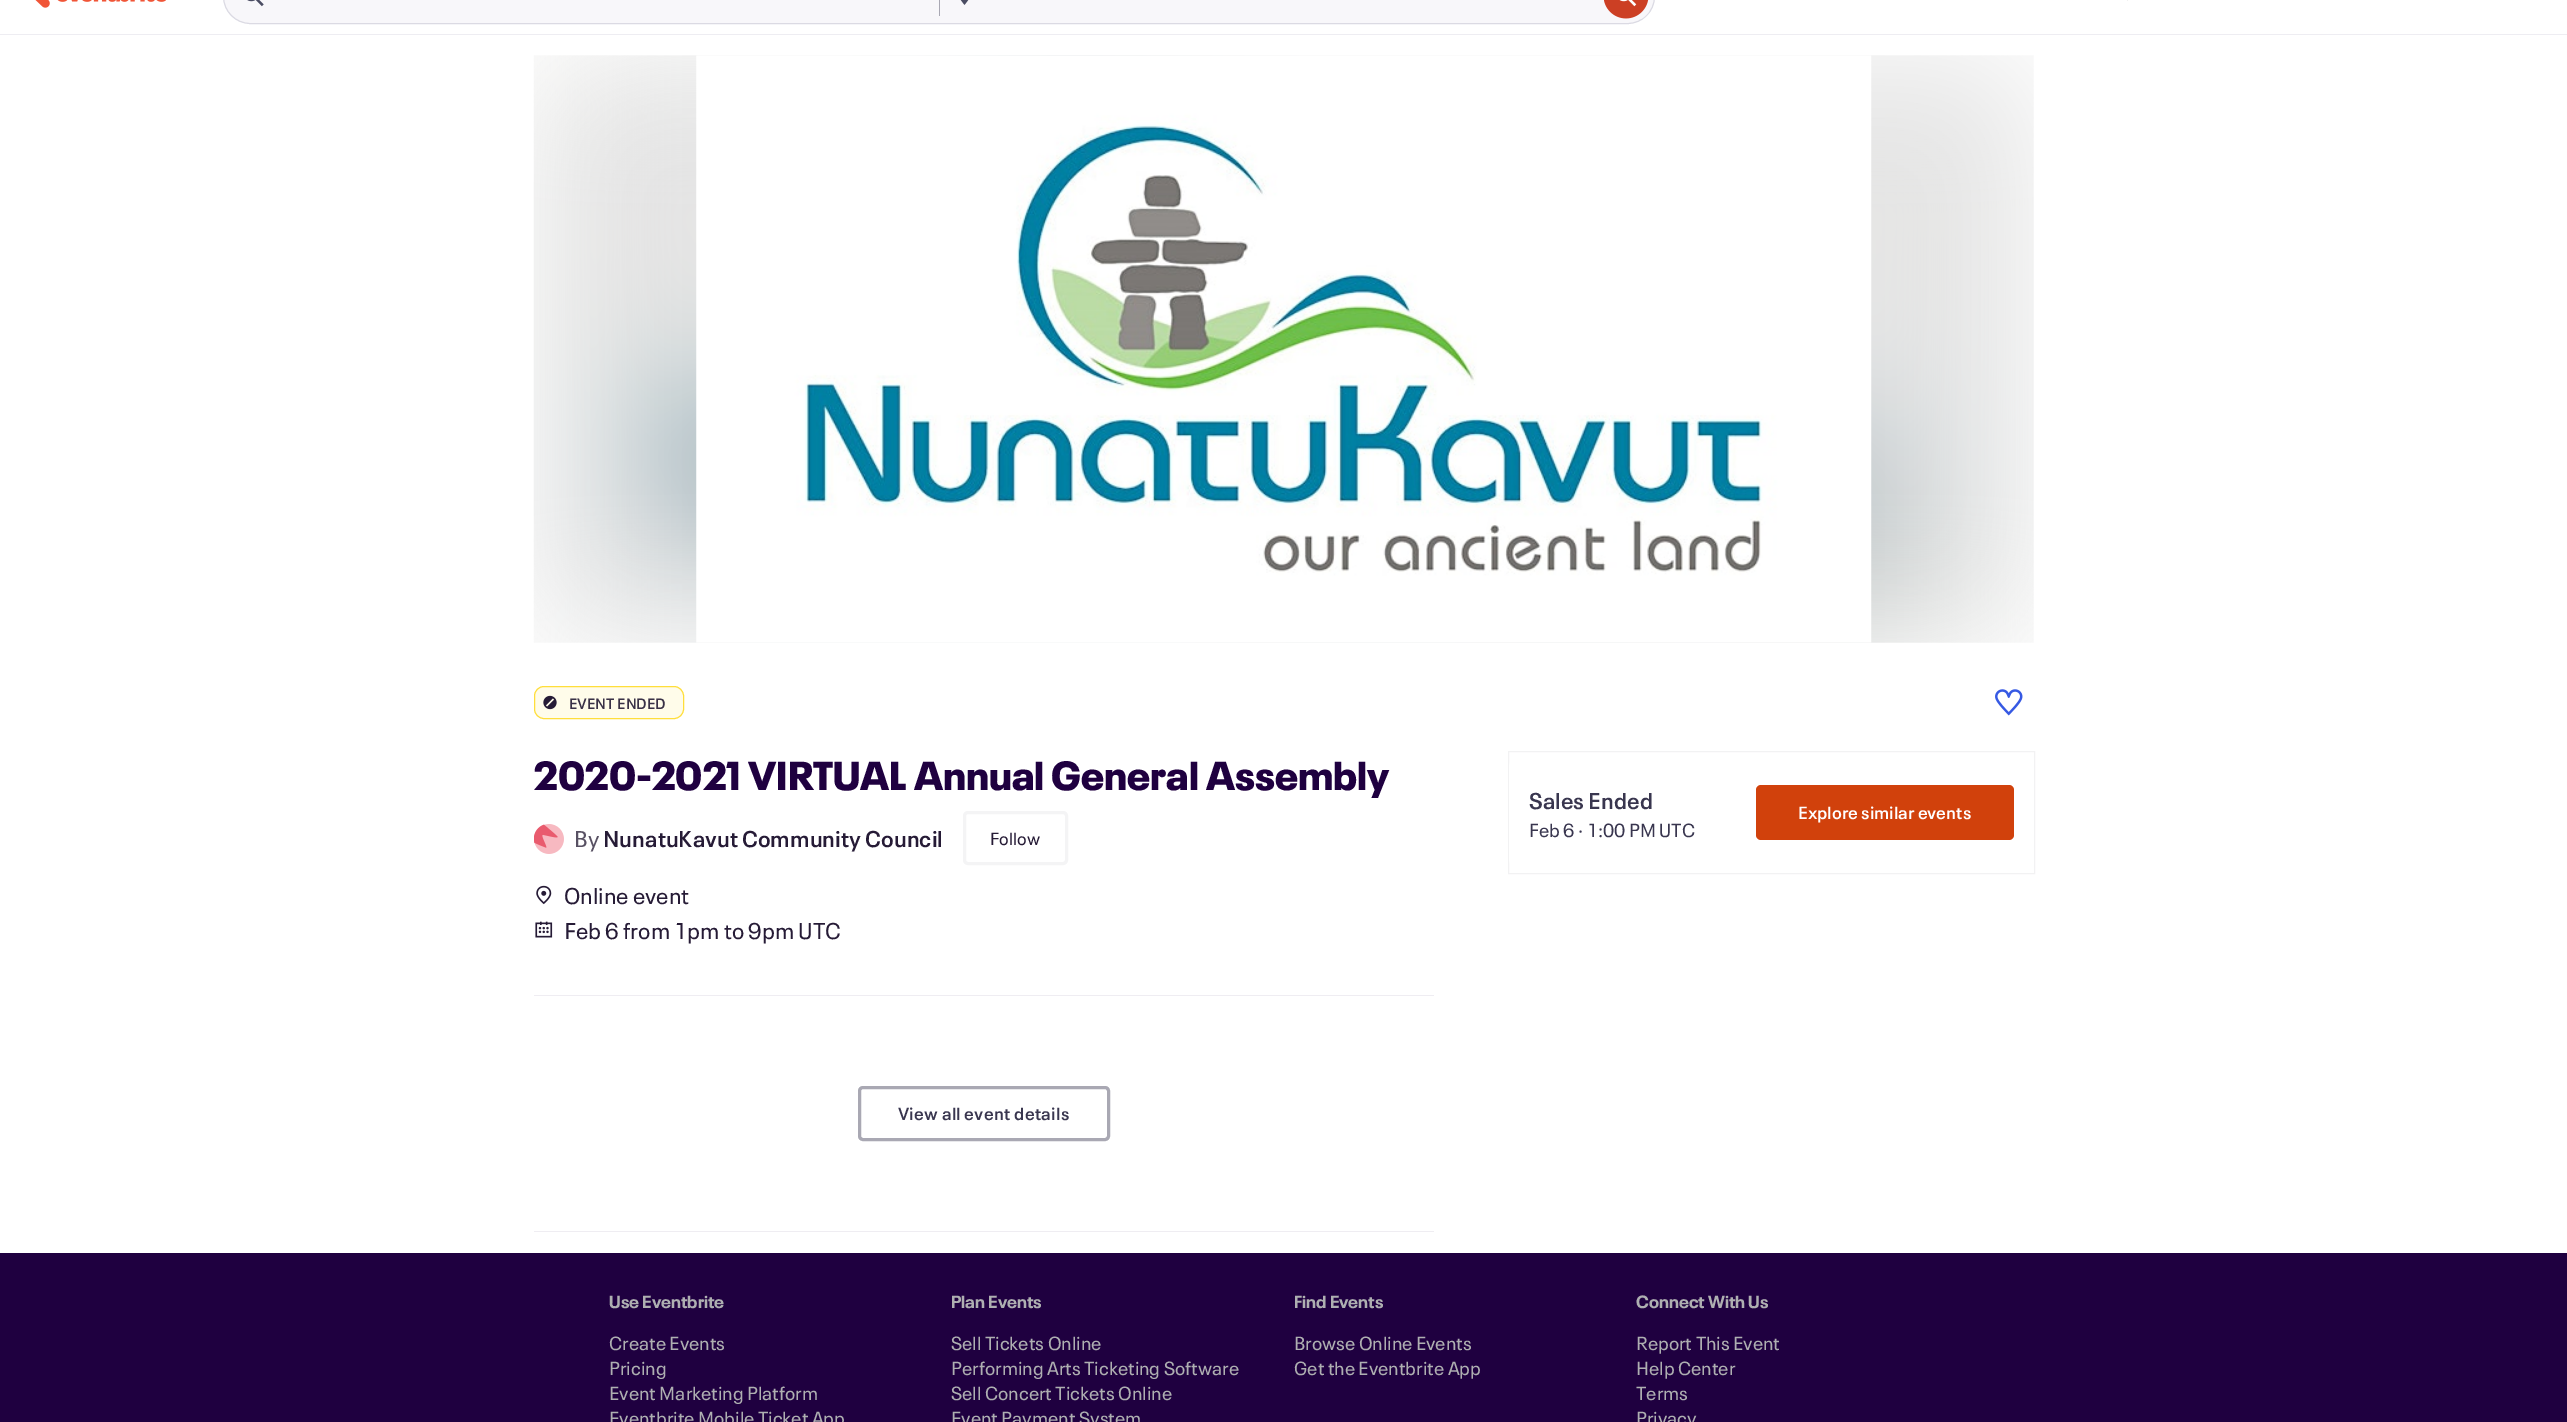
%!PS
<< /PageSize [2567 1422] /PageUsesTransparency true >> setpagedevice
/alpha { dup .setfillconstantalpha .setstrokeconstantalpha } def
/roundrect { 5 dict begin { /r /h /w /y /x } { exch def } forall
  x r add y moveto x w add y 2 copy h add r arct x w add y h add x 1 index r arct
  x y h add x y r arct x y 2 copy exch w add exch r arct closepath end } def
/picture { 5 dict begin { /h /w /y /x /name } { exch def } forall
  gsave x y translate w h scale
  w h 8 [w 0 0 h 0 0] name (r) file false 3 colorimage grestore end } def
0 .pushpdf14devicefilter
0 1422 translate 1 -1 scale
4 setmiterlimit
0.122 0 0.251 setrgbcolor
0 0 2567 1422 rectfill
1 setgray
0 0 2567 34 rectfill
0.933 0.929 0.949 setrgbcolor
0 34 2567 1 rectfill
(img1.rgb) 35 0 131 8 picture
0.973 0.969 0.98 setrgbcolor
223.5 -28.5 1431 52 27 roundrect gsave fill grestore
0.859 0.855 0.89 setrgbcolor
stroke
(img2.rgb) 247 0 17 7 picture
0.663 0.659 0.702 setrgbcolor
939 0 1 16 rectfill
(img3.rgb) 960 0 9 5 picture
(img4.rgb) 1604 0 45 19 picture
0.941 setgray
2127 0 1 1 rectfill
1 setgray
0 35 2567 1218 rectfill
(img5.rgb) 533 55 1501 588 picture
(img6.rgb) 696 55 1176 588 picture
1 0.988 0.918 setrgbcolor
534.5 686.5 149 32 9.5 roundrect gsave fill grestore
1 0.871 0.231 setrgbcolor
stroke
(img7.rgb) 543 695 14 15 picture
/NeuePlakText-SemiBold [15 0 0 -15 0 0] selectfont
0.227 0.196 0.278 setrgbcolor
569 709 moveto (EVENT ENDED) show
(img8.rgb) 1995 689 28 27 picture
/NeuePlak-Black [40 0 0 -40 0 0] selectfont
0.122 0 0.251 setrgbcolor
534 790 moveto (2020-2021 VIRTUAL Annual General Assembly) show
(img9.rgb) 534 824 30 30 picture
/NeuePlakText-Regular [22.5 0 0 -22.5 0 0] selectfont
0.345 0.318 0.388 setrgbcolor
574 847 moveto (By) show
/NeuePlakText-SemiBold [22.5 0 0 -22.5 0 0] selectfont
0.149 0.106 0.212 setrgbcolor
603 847 moveto (NunatuKavut Community Council) show
0.957 0.957 0.961 setrgbcolor
3 setlinewidth
964.5 812.5 102 51 3.5 roundrect stroke
/NeuePlakText-Regular [17.5 0 0 -17.5 0 0] selectfont
0.149 0.106 0.212 setrgbcolor
990 845 moveto (Follow) show
(img10.rgb) 536 885 16 20 picture
/NeuePlakText-Regular [22.5 0 0 -22.5 0 0] selectfont
564 904 moveto (Online event) show
(img11.rgb) 535 921 18 17 picture
/NotoSans-Medium [22.5 0 0 -22.5 0 0] selectfont
564 939 moveto (F) show
/NeuePlakText-Regular [22.5 0 0 -22.5 0 0] selectfont
576 939 moveto (eb 6 from 1pm to 9pm UTC) show
0.937 0.929 0.949 setrgbcolor
534 995 900 1 rectfill
0.663 0.659 0.702 setrgbcolor
859.5 1087.5 249 52 3.5 roundrect stroke
/NeuePlakText-SemiBold [17.5 0 0 -17.5 0 0] selectfont
0.224 0.212 0.31 setrgbcolor
898 1120 moveto 0.25 0 (View all event details) ashow
0.937 0.929 0.949 setrgbcolor
534 1231 900 1 rectfill
0.06 alpha
0.149 0.106 0.212 setrgbcolor
1 setlinewidth
1508.5 751.5 526 122 rectstroke
1 alpha
1 setgray
1509 753 525 120 15 roundrect fill
/NeuePlakText-SemiBold [22.5 0 0 -22.5 0 0] selectfont
0.224 0.212 0.31 setrgbcolor
1529 809 moveto (Sales Ended) show
/NeuePlakText-Regular [18.75 0 0 -18.75 0 0] selectfont
1529 837 moveto (Feb 6 · 1:00 PM UTC) show
0.82 0.255 0.047 setrgbcolor
1756 785 258 55 5 roundrect fill
/NeuePlakText-SemiBold [17.5 0 0 -17.5 0 0] selectfont
1 setgray
1798 819 moveto (Explore similar events) show
/NeuePlak-Bold [17.5 0 0 -17.5 0 0] selectfont
0.682 0.686 0.694 setrgbcolor
609 1308 moveto (Use Eventbrite) show
/NeuePlakText-Regular [18.75 0 0 -18.75 0 0] selectfont
609 1350 moveto (Create Events) show
609 1375 moveto (Pricing) show
609 1400 moveto (Event Marketing Platform) show
609 1425 moveto (Eventbrite Mobile Ticket App) show
/NeuePlak-Bold [17.5 0 0 -17.5 0 0] selectfont
951 1308 moveto (Plan Events) show
/NeuePlakText-Regular [18.75 0 0 -18.75 0 0] selectfont
951 1350 moveto (Sell Tickets Online) show
951 1375 moveto (Performing Arts Ticketing Software) show
951 1400 moveto (Sell Concert Tickets Online) show
951 1425 moveto (Event Payment System) show
/NeuePlak-Bold [17.5 0 0 -17.5 0 0] selectfont
1294 1308 moveto (Find Events) show
/NeuePlakText-Regular [18.75 0 0 -18.75 0 0] selectfont
1294 1350 moveto (Browse Online Events) show
1294 1375 moveto (Get the Eventbrite App) show
/NeuePlak-Bold [17.5 0 0 -17.5 0 0] selectfont
1636 1308 moveto (Connect With Us) show
/NeuePlakText-Regular [18.75 0 0 -18.75 0 0] selectfont
1636 1350 moveto (Report This Event) show
1636 1375 moveto (Help Center) show
1636 1400 moveto (Terms) show
1636 1425 moveto (Privacy) show
.poppdf14devicefilter showpage
